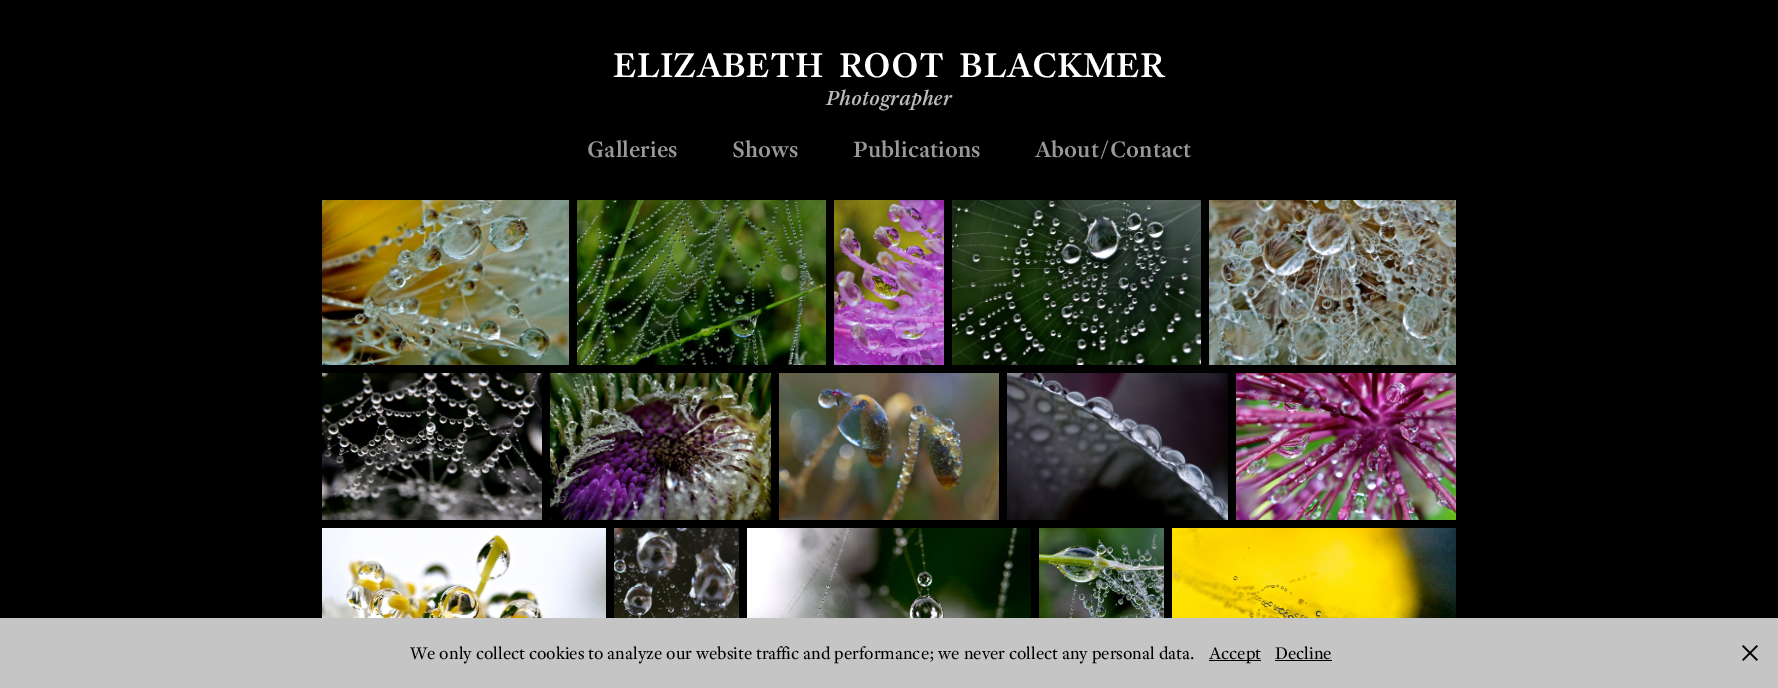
%!PS
<< /PageSize [1778 688] >> setpagedevice
/picture { 5 dict begin { /h /w /y /x /name } { exch def } forall
  gsave x y translate w h scale
  w h 8 [w 0 0 h 0 0] name (r) file false 3 colorimage grestore end } def
0 688 translate 1 -1 scale
4 setmiterlimit
0 setgray
0 0 1778 688 rectfill
/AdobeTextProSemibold-SemiBold [37 0 0 -37 0 0] selectfont
1 setgray
613 77 moveto (ELIZABETH  ROOT  BLACKMER) show
/AdobeTextProSemibold-SemiBoldItalic [22 0 0 -22 0 0] selectfont
0.733 setgray
826 105 moveto (Photographer) show
/AdobeTextProSemibold-SemiBold [24 0 0 -24 0 0] selectfont
0.6 setgray
587 157 moveto (Galleries) show
732 157 moveto (Shows) show
853 157 moveto (Publications) show
1035 157 moveto (About/Contact) show
(img1.rgb) 322 200 247 165 picture
(img2.rgb) 577 200 249 165 picture
(img3.rgb) 834 200 110 165 picture
(img4.rgb) 952 200 249 165 picture
(img5.rgb) 1209 200 247 165 picture
(img6.rgb) 322 373 220 147 picture
(img7.rgb) 550 373 221 147 picture
(img8.rgb) 779 373 220 147 picture
(img9.rgb) 1007 373 221 147 picture
(img10.rgb) 1236 373 220 147 picture
(img11.rgb) 322 528 284 90 picture
(img12.rgb) 614 528 125 90 picture
(img13.rgb) 747 528 284 90 picture
(img14.rgb) 1039 528 125 90 picture
(img15.rgb) 1172 528 284 90 picture
0.773 setgray
0 618 1778 70 rectfill
/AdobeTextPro-Regular [18 0 0 -18 0 0] selectfont
0 setgray
410 659 moveto (We only collect cookies to analyze our website traffic and performance; we never collect any personal data.) show
1209 660 52 1 rectfill
1209 659 moveto (Accept) show
1275 659 moveto (Decline) show
1275 660 57 1 rectfill
(img16.rgb) 1742 645 16 16 picture
showpage
